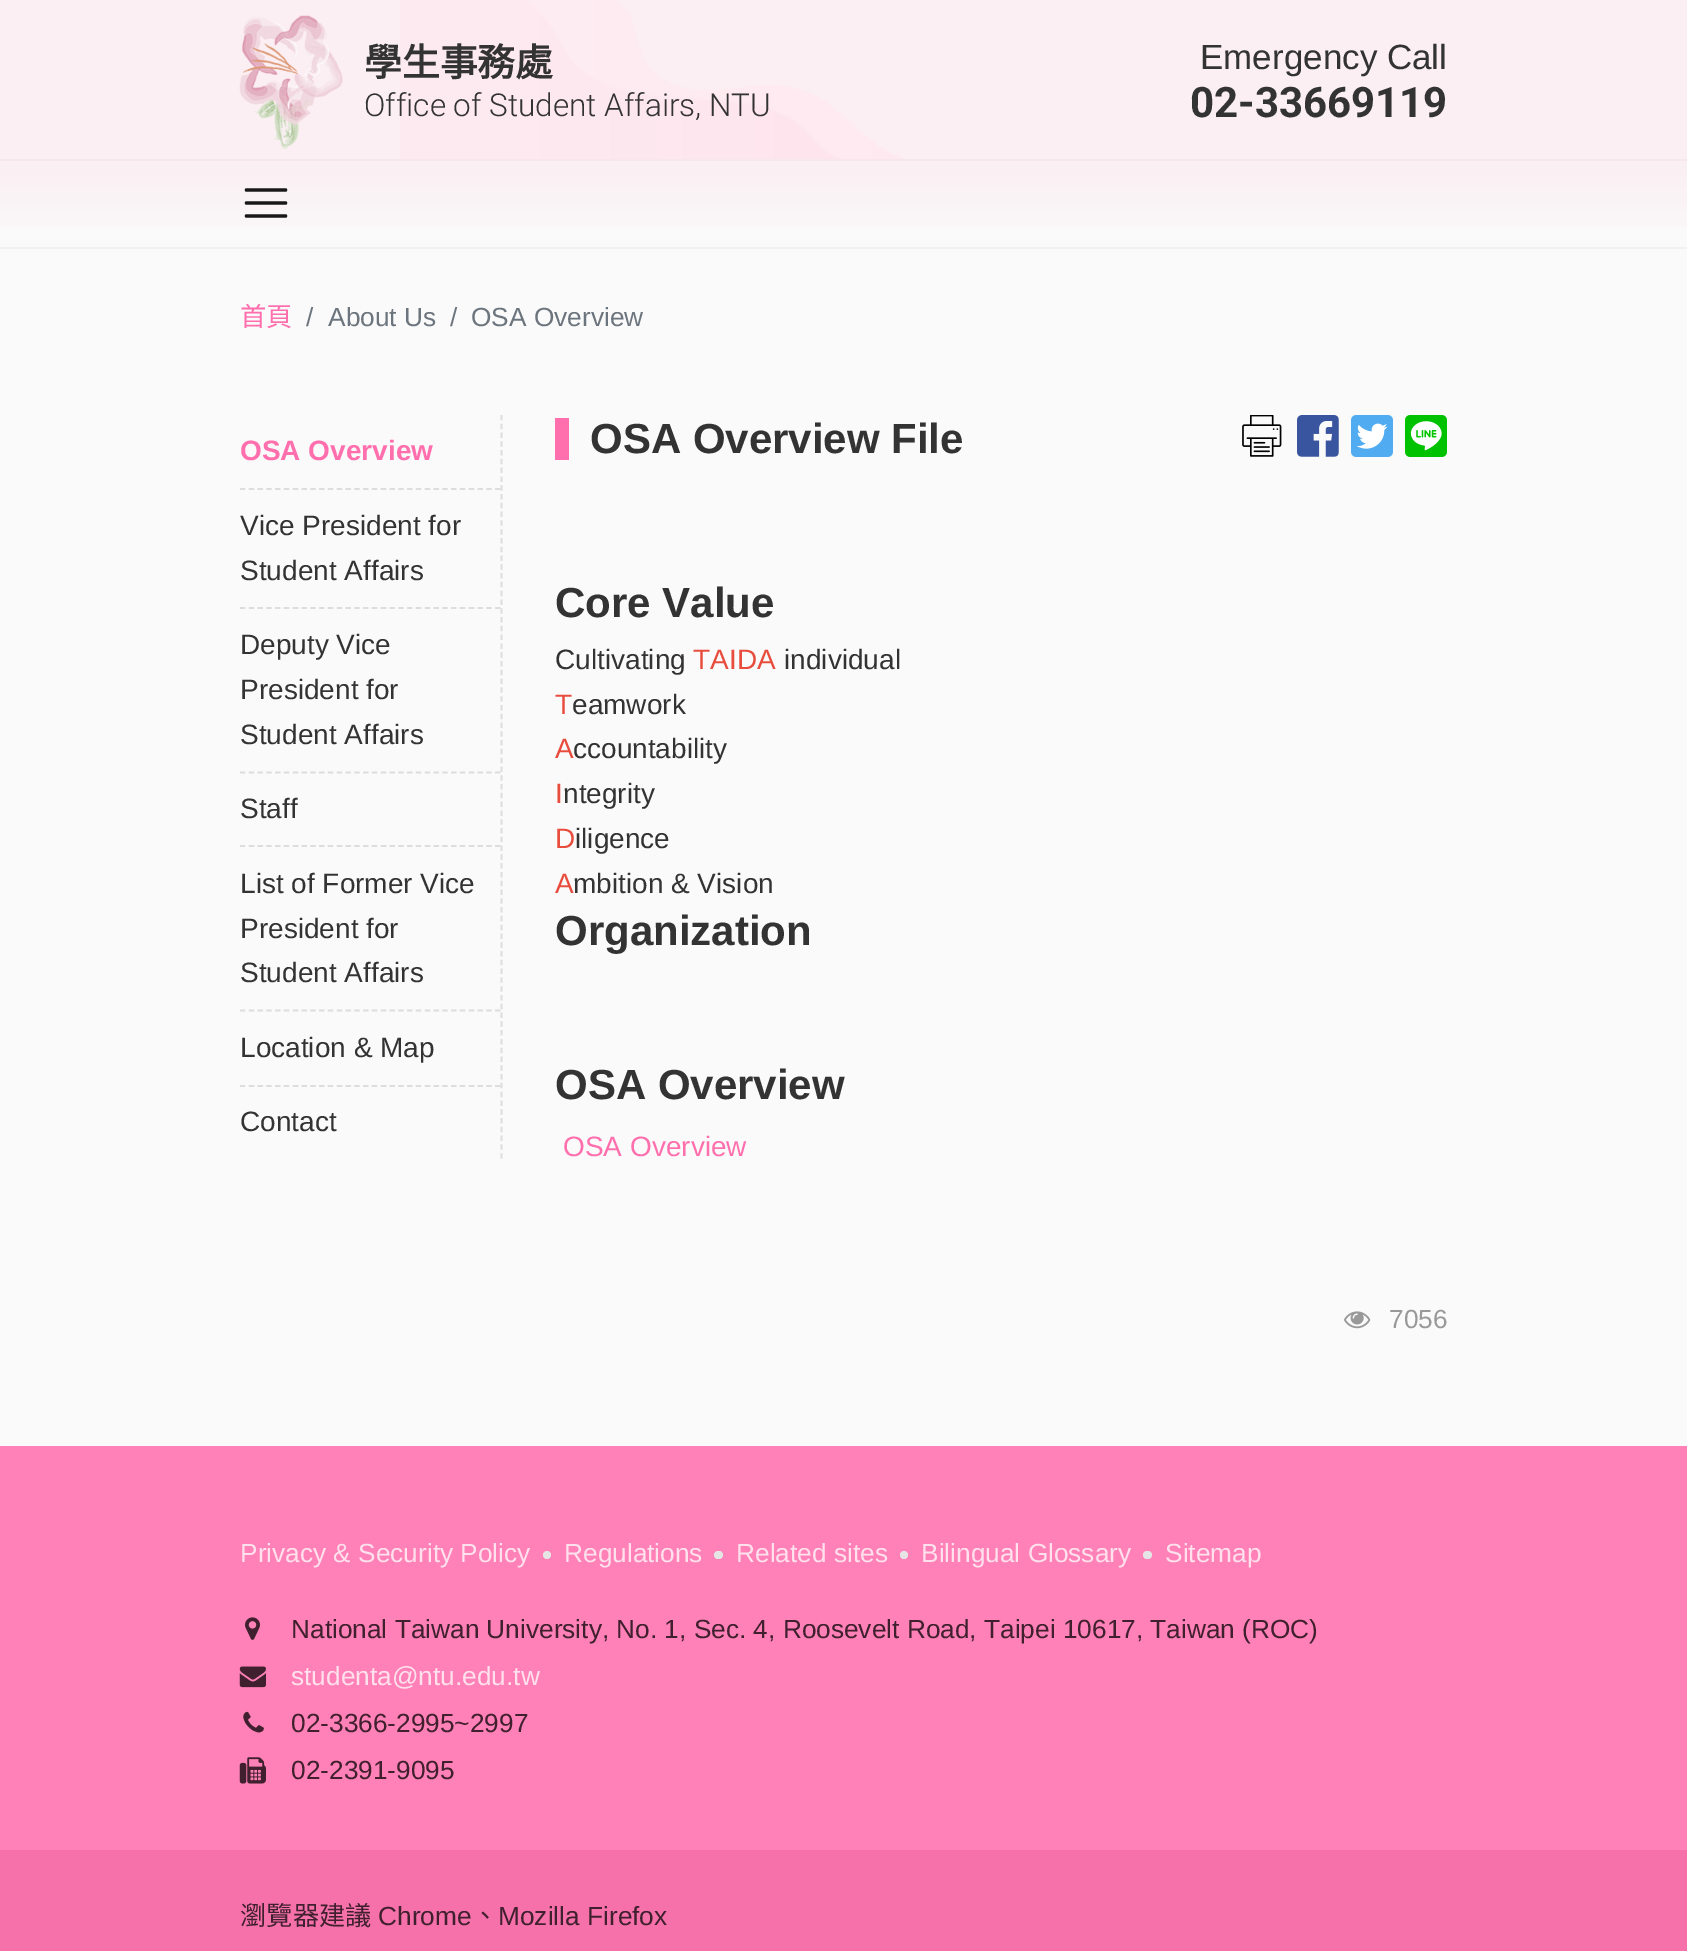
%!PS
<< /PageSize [1687 1951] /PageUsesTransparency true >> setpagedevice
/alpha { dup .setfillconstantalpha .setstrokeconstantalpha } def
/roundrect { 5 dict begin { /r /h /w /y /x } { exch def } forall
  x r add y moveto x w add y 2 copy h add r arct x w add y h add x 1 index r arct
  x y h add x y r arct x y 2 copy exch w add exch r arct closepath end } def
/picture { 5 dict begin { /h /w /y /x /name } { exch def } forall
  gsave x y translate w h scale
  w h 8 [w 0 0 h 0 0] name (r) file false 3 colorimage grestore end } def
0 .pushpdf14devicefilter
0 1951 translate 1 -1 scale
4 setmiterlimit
0.98 setgray
0 0 1687 1951 rectfill
0.984 0.937 0.953 setrgbcolor
0 0 1687 159 rectfill
(img1.rgb) 400 0 503 159 picture
(img2.rgb) 239 15 104 134 picture
/NotoSansCJKTC-Bold [37.75 0 0 -37.75 0 0] selectfont
0.2 setgray
364 76 moveto (學生事務處) show
/Roboto-Light [31.5 0 0 -31.5 0 0] selectfont
364 116 moveto (Office of Student Affairs, NTU) show
/LiberationSans-Regular [35 0 0 -35 0 0] selectfont
1200 69 moveto (Emergency Call) show
/Roboto-Bold [42 0 0 -42 0 0] selectfont
1190 117 moveto (02-33669119) show
0.957 0.937 0.945 setrgbcolor
0 247 1687 2 rectfill
gsave newpath 0 161 moveto 1687 161 lineto 1687 227 lineto 0 227 lineto closepath clip newpath
<< /ShadingType 2 /ColorSpace /DeviceRGB /Coords [844 159 844 247] /Extend [true true] /Function << /FunctionType 2 /Domain [0 1] /C0 [0.984 0.937 0.953] /C1 [0.98 0.98 0.98] /N 1 >> >> shfill grestore
0.969 0.902 0.929 setrgbcolor
0 159 1687 2 rectfill
0.9 alpha
0 setgray
3.3 setlinewidth
1 setlinecap
newpath 246.5 190 moveto 285.5 190 lineto 246.5 203 moveto 285.5 203 lineto 246.5 216 moveto 285.5 216 lineto stroke
/NotoSansCJKTC-Regular [26.25 0 0 -26.25 0 0] selectfont
1 alpha
1 0.435 0.678 setrgbcolor
240 326 moveto (首頁) show
/LiberationSans-Regular [26.25 0 0 -26.25 0 0] selectfont
0.424 0.459 0.49 setrgbcolor
306 326 moveto (/) show
328 326 moveto (About Us) show
450 326 moveto (/) show
471 326 moveto (OSA Overview) show
0.867 setgray
1.8 setlinewidth
0 setlinecap
[5.25 3.54] 0 setdash
newpath 501.5 415 moveto 501.5 1158.5 lineto stroke
[5.25 3.55] 0 setdash
newpath 240 489 moveto 500.5 489 lineto stroke
/LiberationSans-Bold [28 0 0 -28 0 0] selectfont
1 0.435 0.678 setrgbcolor
240 460 moveto (OSA Overview) show
0.867 setgray
newpath 240 608 moveto 500.5 608 lineto stroke
/LiberationSans-Regular [28 0 0 -28 0 0] selectfont
0.2 setgray
240 535 moveto (Vice President for) show
240 580 moveto (Student Affairs) show
0.867 setgray
newpath 240 772.5 moveto 500.5 772.5 lineto stroke
0.2 setgray
240 654 moveto (Deputy Vice) show
240 699 moveto (President for) show
240 744 moveto (Student Affairs) show
0.867 setgray
newpath 240 846 moveto 500.5 846 lineto stroke
0.2 setgray
240 818 moveto (Staff) show
0.867 setgray
newpath 240 1010.5 moveto 500.5 1010.5 lineto stroke
0.2 setgray
240 893 moveto (List of Former Vice) show
240 938 moveto (President for) show
240 982 moveto (Student Affairs) show
0.867 setgray
newpath 240 1086 moveto 500.5 1086 lineto stroke
0.2 setgray
240 1057 moveto (Location & Map) show
240 1131 moveto (Contact) show
1 0.435 0.678 setrgbcolor
555 418 14 42 rectfill
/LiberationSans-Bold [42 0 0 -42 0 0] selectfont
0.2 setgray
590 453 moveto (OSA Overview File) show
(img3.rgb) 1242 415 40 42 picture
(img4.rgb) 1297 415 42 42 picture
(img5.rgb) 1351 415 42 42 picture
(img6.rgb) 1405 415 42 42 picture
555 617 moveto (Core Value) show
/LiberationSans-Regular [28 0 0 -28 0 0] selectfont
555 669 moveto (Cultivating) show
0.906 0.298 0.235 setrgbcolor
693 669 moveto (TAIDA) show
0.2 setgray
784 669 moveto (individual) show
0.906 0.298 0.235 setrgbcolor
555 714 moveto (T) show
0.2 setgray
572 714 moveto (eamwork) show
0.906 0.298 0.235 setrgbcolor
555 758 moveto (A) show
0.2 setgray
573 758 moveto (ccountability) show
0.906 0.298 0.235 setrgbcolor
555 803 moveto (I) show
0.2 setgray
563 803 moveto (ntegrity) show
0.906 0.298 0.235 setrgbcolor
555 848 moveto (D) show
0.2 setgray
575 848 moveto (iligence) show
0.906 0.298 0.235 setrgbcolor
555 893 moveto (A) show
0.2 setgray
573 893 moveto (mbition & Vision) show
/LiberationSans-Bold [42 0 0 -42 0 0] selectfont
555 945 moveto (Organization) show
555 1099 moveto (OSA Overview) show
/LiberationSans-Regular [28 0 0 -28 0 0] selectfont
1 0.435 0.678 setrgbcolor
563 1156 moveto (OSA Overview) show
(img7.rgb) 1344 1311 27 18 picture
/LiberationSans-Regular [26.25 0 0 -26.25 0 0] selectfont
0.6 setgray
1389 1328 moveto (7056) show
1 0.506 0.718 setrgbcolor
0 1446 1687 404 rectfill
1 0.878 0.929 setrgbcolor
240 1562 moveto (Privacy & Security Policy) show
0.898 setgray
newpath 547 1555 4 0 360 arc closepath fill
1 0.878 0.929 setrgbcolor
564 1562 moveto (Regulations) show
0.898 setgray
714 1551 9 8 4 roundrect fill
1 0.878 0.929 setrgbcolor
736 1562 moveto (Related sites) show
0.898 setgray
newpath 904 1555 4 0 360 arc closepath fill
1 0.878 0.929 setrgbcolor
921 1562 moveto (Bilingual Glossary) show
0.898 setgray
1143 1551 9 8 4 roundrect fill
1 0.878 0.929 setrgbcolor
1165 1562 moveto (Sitemap) show
(img8.rgb) 245 1617 15 23 picture
0.251 0.125 0.18 setrgbcolor
291 1638 moveto (National Taiwan University, No. 1, Sec. 4, Roosevelt Road, Taipei 10617, Taiwan \(ROC\)) show
(img9.rgb) 239 1666 27 22 picture
1 0.878 0.929 setrgbcolor
291 1685 moveto (studenta@ntu.edu.tw) show
(img10.rgb) 243 1711 21 22 picture
0.251 0.125 0.18 setrgbcolor
291 1732 moveto (02-3366-2995~2997) show
(img11.rgb) 239 1757 27 27 picture
291 1779 moveto (02-2391-9095) show
0.965 0.443 0.667 setrgbcolor
0 1850 1687 101 rectfill
/NotoSansCJKTC-Regular [26.25 0 0 -26.25 0 0] selectfont
0.251 0.125 0.18 setrgbcolor
240 1925 moveto (瀏覽器建議) show
/LiberationSans-Regular [26.25 0 0 -26.25 0 0] selectfont
378 1925 moveto (Chrome) show
/NotoSansCJKTC-Regular [26.25 0 0 -26.25 0 0] selectfont
472 1925 moveto (、) show
/LiberationSans-Regular [26.25 0 0 -26.25 0 0] selectfont
498 1925 moveto (Mozilla Firefox) show
.poppdf14devicefilter showpage
